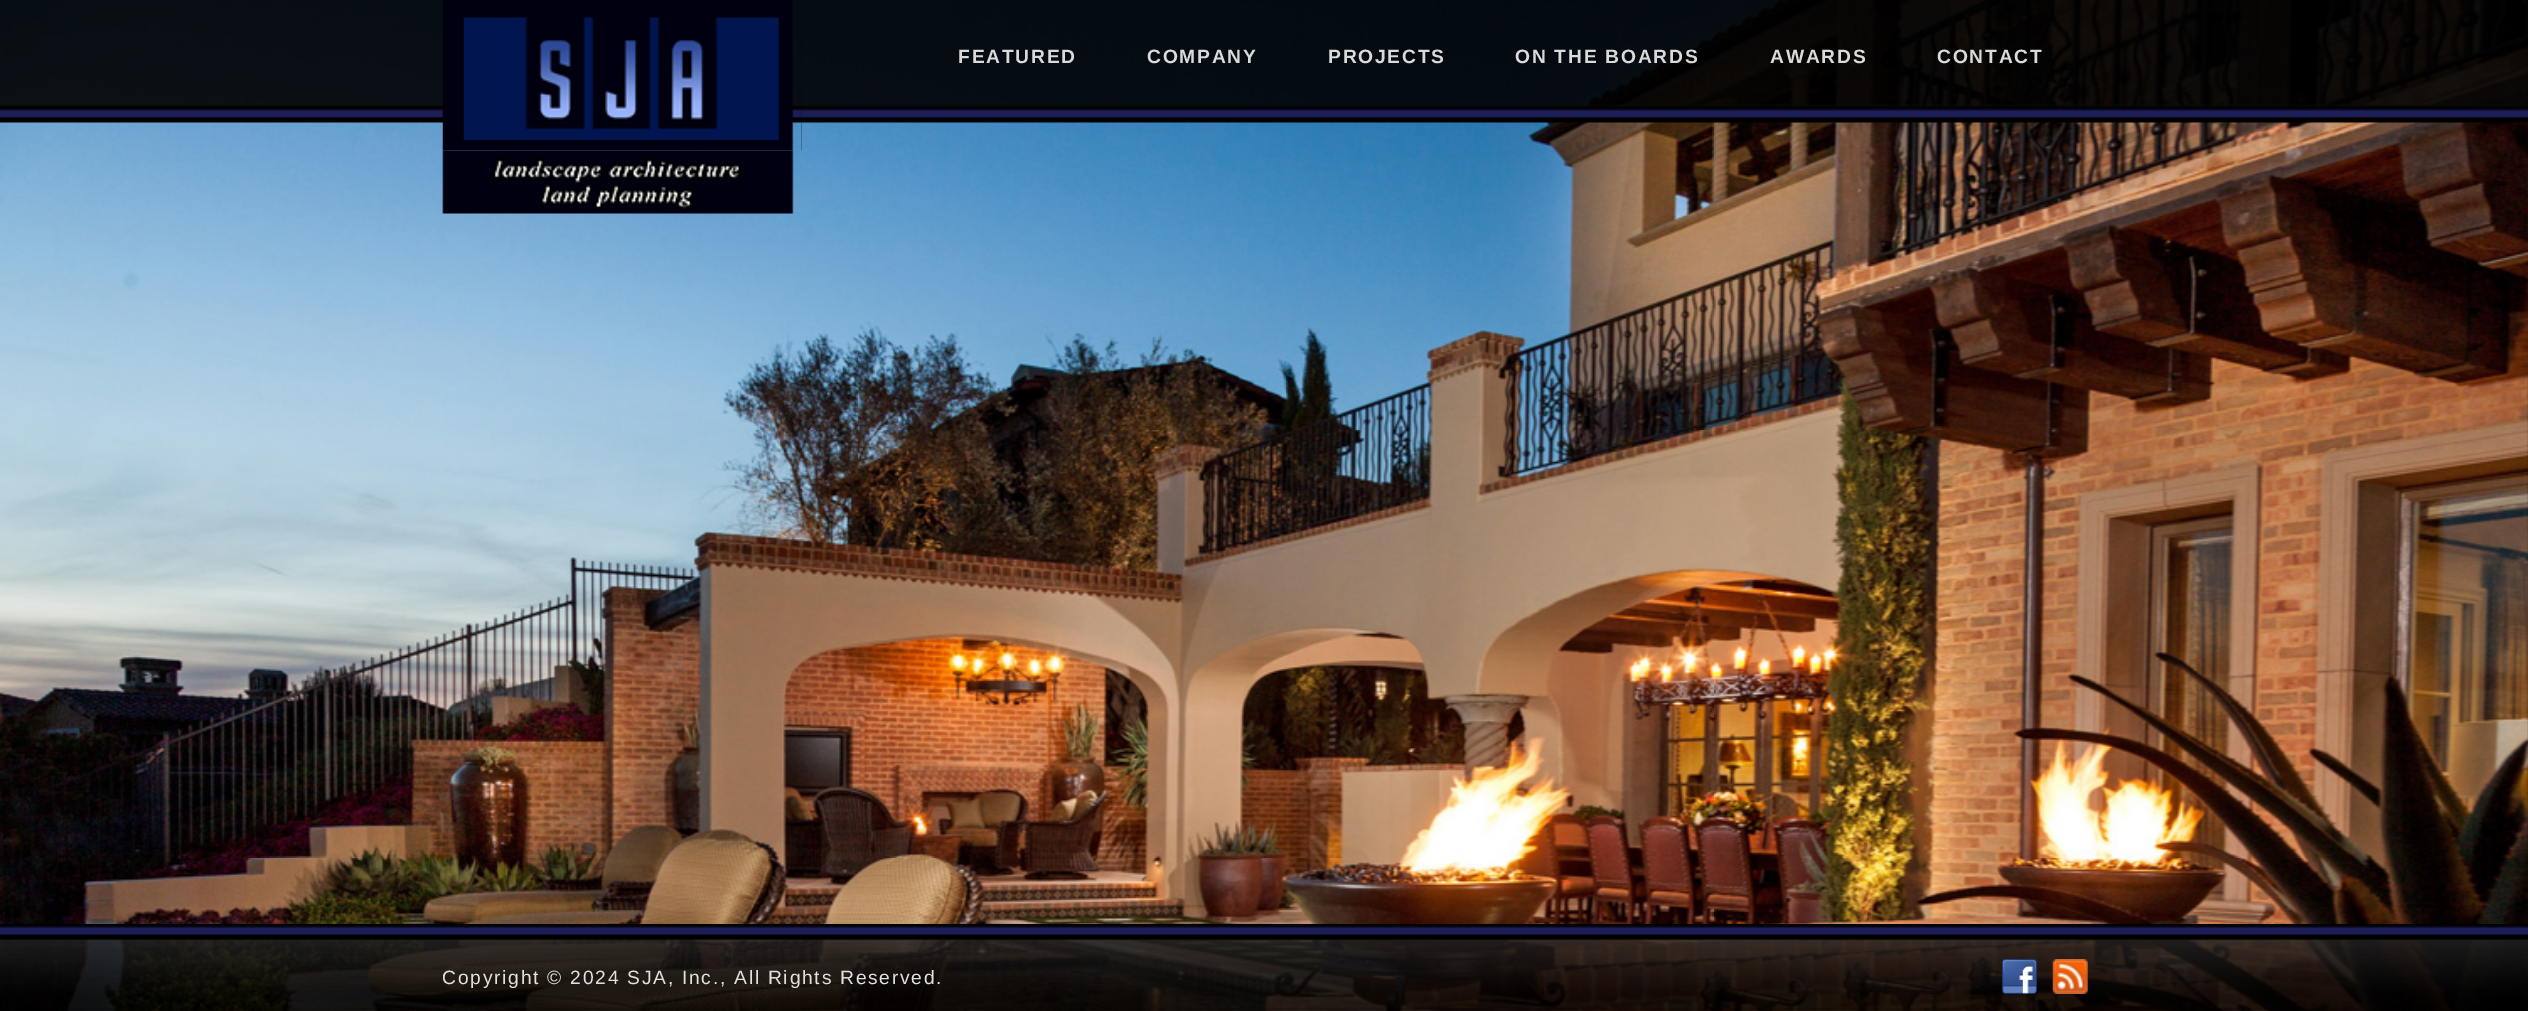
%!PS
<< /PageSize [2528 1011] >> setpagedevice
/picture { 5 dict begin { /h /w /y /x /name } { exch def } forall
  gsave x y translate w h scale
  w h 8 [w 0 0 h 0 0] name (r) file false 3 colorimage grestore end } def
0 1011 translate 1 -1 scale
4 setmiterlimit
1 setgray
0 0 2528 1011 rectfill
(img1.rgb) 0 0 2528 1011 picture
(img2.rgb) 0 0 2528 123 picture
(img3.rgb) 442 150 352 64 picture
(img4.rgb) 442 0 360 151 picture
(img5.rgb) 463 17 316 123 picture
/LiberationSans-Bold [19.25 0 0 -19.25 0 0] selectfont
0.855 setgray
958 63 moveto 1.75 0 (FEATURED) ashow
1147 63 moveto 1.75 0 (COMPANY) ashow
1328 63 moveto 1.75 0 (PROJECTS) ashow
1515 63 moveto 1.75 0 (ON THE BOARDS) ashow
1770 63 moveto 1.75 0 (AWARDS) ashow
1937 63 moveto 1.75 0 (CONTACT) ashow
(img6.rgb) 0 924 2528 87 picture
/LiberationSans-Regular [19.25 0 0 -19.25 0 0] selectfont
0.882 setgray
442 984 moveto 1.75 0 (Copyright © 2024 SJA, Inc., All Rights Reserved.) ashow
(img7.rgb) 2002 959 35 35 picture
(img8.rgb) 2052 959 36 35 picture
showpage
